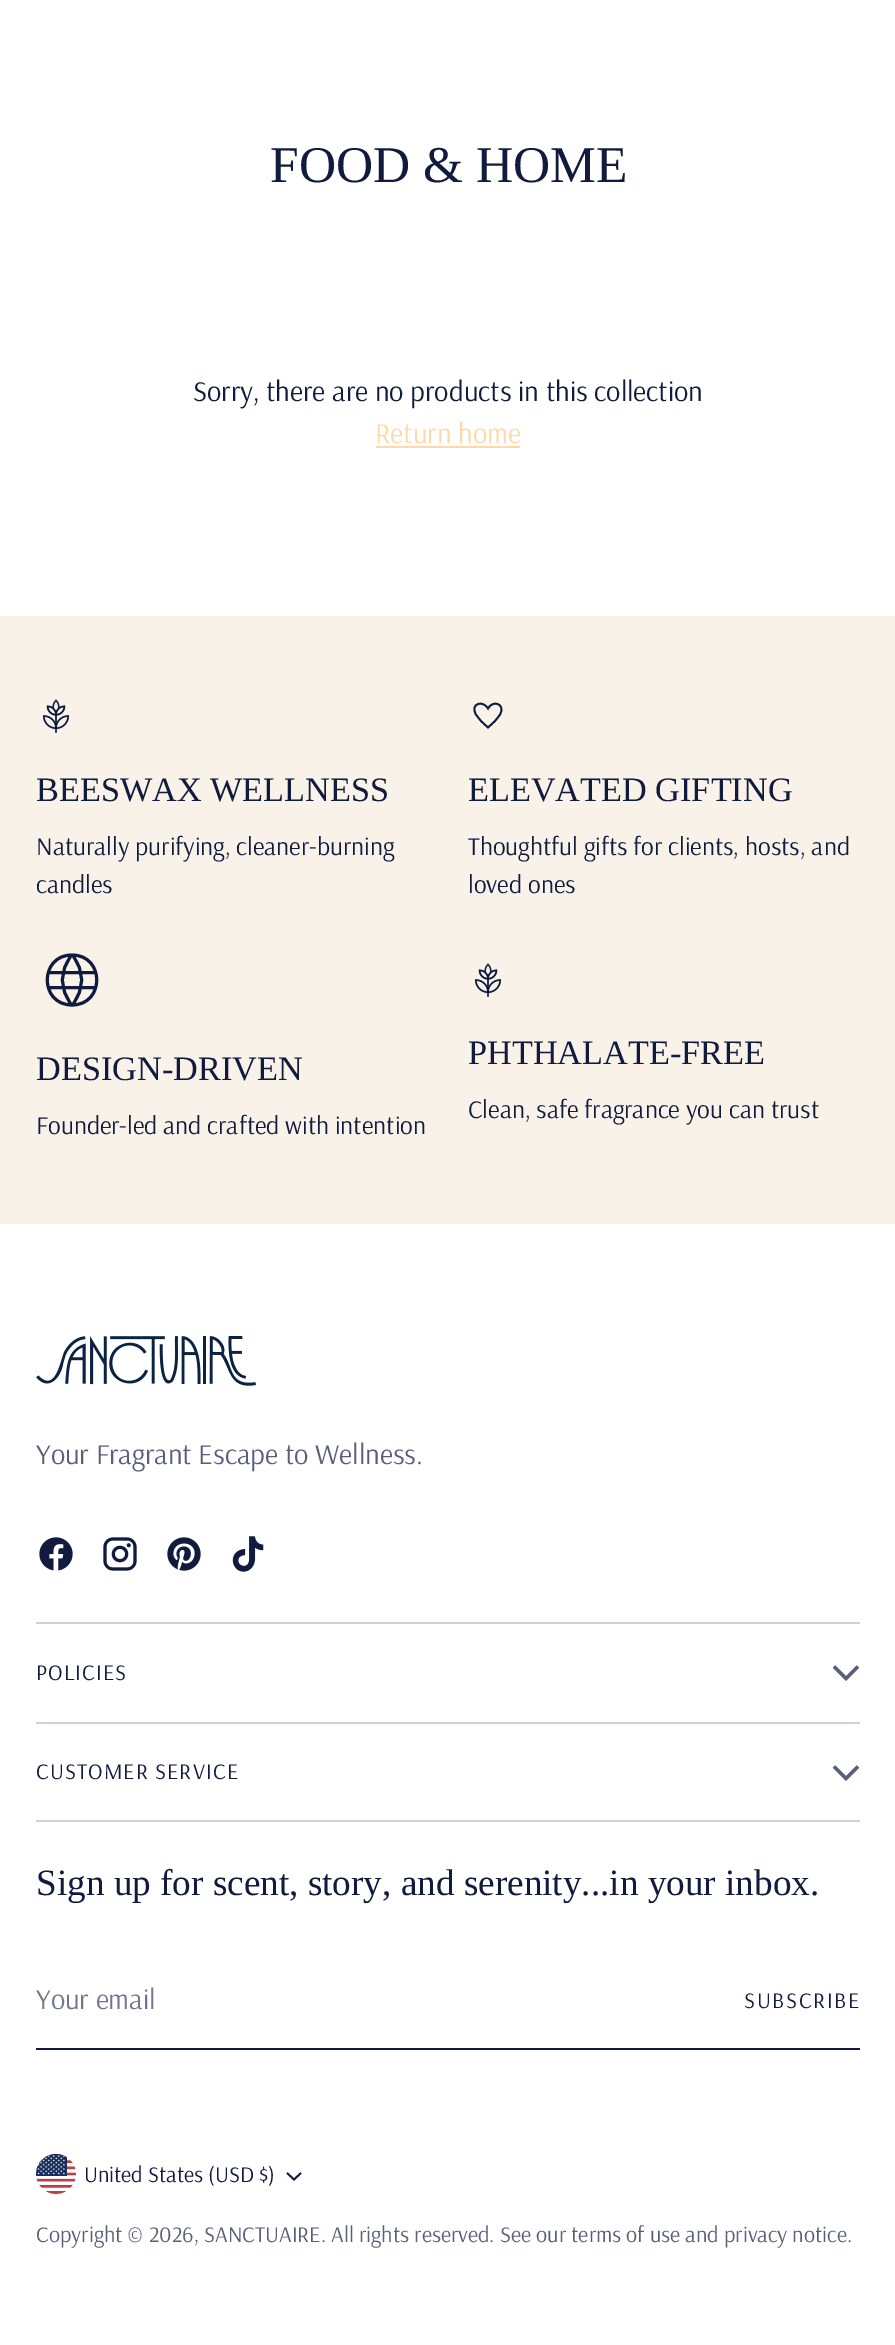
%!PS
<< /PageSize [895 2345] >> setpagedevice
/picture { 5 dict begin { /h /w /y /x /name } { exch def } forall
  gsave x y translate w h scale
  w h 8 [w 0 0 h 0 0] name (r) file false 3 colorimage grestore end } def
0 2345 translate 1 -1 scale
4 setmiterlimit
1 setgray
0 0 895 2345 rectfill
/LiberationSerif-Regular [51.5 0 0 -51.5 0 0] selectfont
0.063 0.106 0.243 setrgbcolor
270 182 moveto (FOOD & HOME) show
/Arsenal-Regular [28.6 0 0 -28.6 0 0] selectfont
193 401 moveto (Sorry, there are no products in this collection) show
0.996 0.851 0.647 setrgbcolor
375 443 moveto (Return home) show
376 446 144 2 rectfill
0.973 0.949 0.91 setrgbcolor
0 616 895 608 rectfill
(img1.rgb) 42 699 28 34 picture
/LiberationSerif-Regular [34.25 0 0 -34.25 0 0] selectfont
0.063 0.106 0.243 setrgbcolor
36 801 moveto (BEESWAX WELLNESS) show
/Arsenal-Regular [25.4 0 0 -25.4 0 0] selectfont
36 855 moveto (Naturally purifying, cleaner-burning) show
36 893 moveto (candles) show
1.8 setlinewidth
newpath 488 727.5 moveto 492.5 723.5 498 719 500.5 713.5 curveto 505 704 493 699.5 488 708.5 curveto 482.5 699.5 470.5 704 475.5 713.5 curveto 478 719 483.5 723.5 488 727.5 curveto closepath stroke
/LiberationSerif-Regular [34.25 0 0 -34.25 0 0] selectfont
468 801 moveto (ELEVATED GIFTING) show
/Arsenal-Regular [25.4 0 0 -25.4 0 0] selectfont
468 855 moveto (Thoughtful gifts for clients, hosts, and) show
468 893 moveto (loved ones) show
3 setlinewidth
newpath 72 1005 moveto 105 1005 105 955 72 955 curveto 39 955 39 1005 72 1005 curveto closepath 48.5 972.5 moveto 95.5 972.5 lineto 48.5 987.5 moveto 95.5 987.5 lineto 72 954.5 moveto 85 971.5 85 988.5 72 1005.5 curveto 72 954.5 moveto 59 971.5 59 988.5 72 1005.5 curveto stroke
/LiberationSerif-Regular [34.25 0 0 -34.25 0 0] selectfont
36 1080 moveto (DESIGN-DRIVEN) show
/Arsenal-Regular [25.4 0 0 -25.4 0 0] selectfont
36 1134 moveto (Founder-led and crafted with intention) show
(img1.rgb) 474 963 28 34 picture
/LiberationSerif-Regular [34.25 0 0 -34.25 0 0] selectfont
468 1064 moveto (PHTHALATE-FREE) show
/Arsenal-Regular [25.4 0 0 -25.4 0 0] selectfont
468 1118 moveto (Clean, safe fragrance you can trust) show
0.812 0.82 0.847 setrgbcolor
36 1622 824 2 rectfill
(img2.rgb) 36 1336 220 50 picture
/Arsenal-Regular [28.6 0 0 -28.6 0 0] selectfont
0.345 0.373 0.471 setrgbcolor
36 1464 moveto (Your Fragrant Escape to Wellness.) show
(img3.rgb) 39 1537 34 34 picture
(img4.rgb) 103 1537 34 34 picture
(img5.rgb) 167 1537 34 34 picture
(img6.rgb) 232 1536 32 36 picture
0.812 0.82 0.847 setrgbcolor
36 1722 824 2 rectfill
/Arsenal-Regular [22.25 0 0 -22.25 0 0] selectfont
0.063 0.106 0.243 setrgbcolor
36 1680 moveto 1.1 0 (POLICIES) ashow
0.345 0.373 0.471 setrgbcolor
3.2 setlinewidth
newpath 834 1666.5 moveto 846 1678.5 lineto 858 1666.5 lineto stroke
0.812 0.82 0.847 setrgbcolor
36 1820 824 2 rectfill
0.063 0.106 0.243 setrgbcolor
36 1779 moveto 1.1 0 (CUSTOMER SERVICE) ashow
0.345 0.373 0.471 setrgbcolor
newpath 834 1766.5 moveto 846 1778.5 lineto 858 1766.5 lineto stroke
/LiberationSerif-Regular [37.2 0 0 -37.2 0 0] selectfont
0.063 0.106 0.243 setrgbcolor
36 1895 moveto (Sign up for scent, story, and serenity...in your inbox.) show
36 2048 824 2 rectfill
/Arsenal-Regular [28.6 0 0 -28.6 0 0] selectfont
0.439 0.463 0.545 setrgbcolor
36 2009 moveto (Your email) show
/Arsenal-Regular [22.25 0 0 -22.25 0 0] selectfont
0.063 0.106 0.243 setrgbcolor
744 2008 moveto 1.75 0 (SUBSCRIBE) ashow
(img7.rgb) 36 2154 40 40 picture
84 2182 moveto (United States \(USD $\)) show
1.8 setlinewidth
newpath 287 2173 moveto 294 2179.5 lineto 301 2173 lineto stroke
0.345 0.373 0.471 setrgbcolor
36 2242 moveto (Copyright © 2026, SANCTUAIRE. All rights reserved. See our terms of use and privacy notice.) show
showpage
